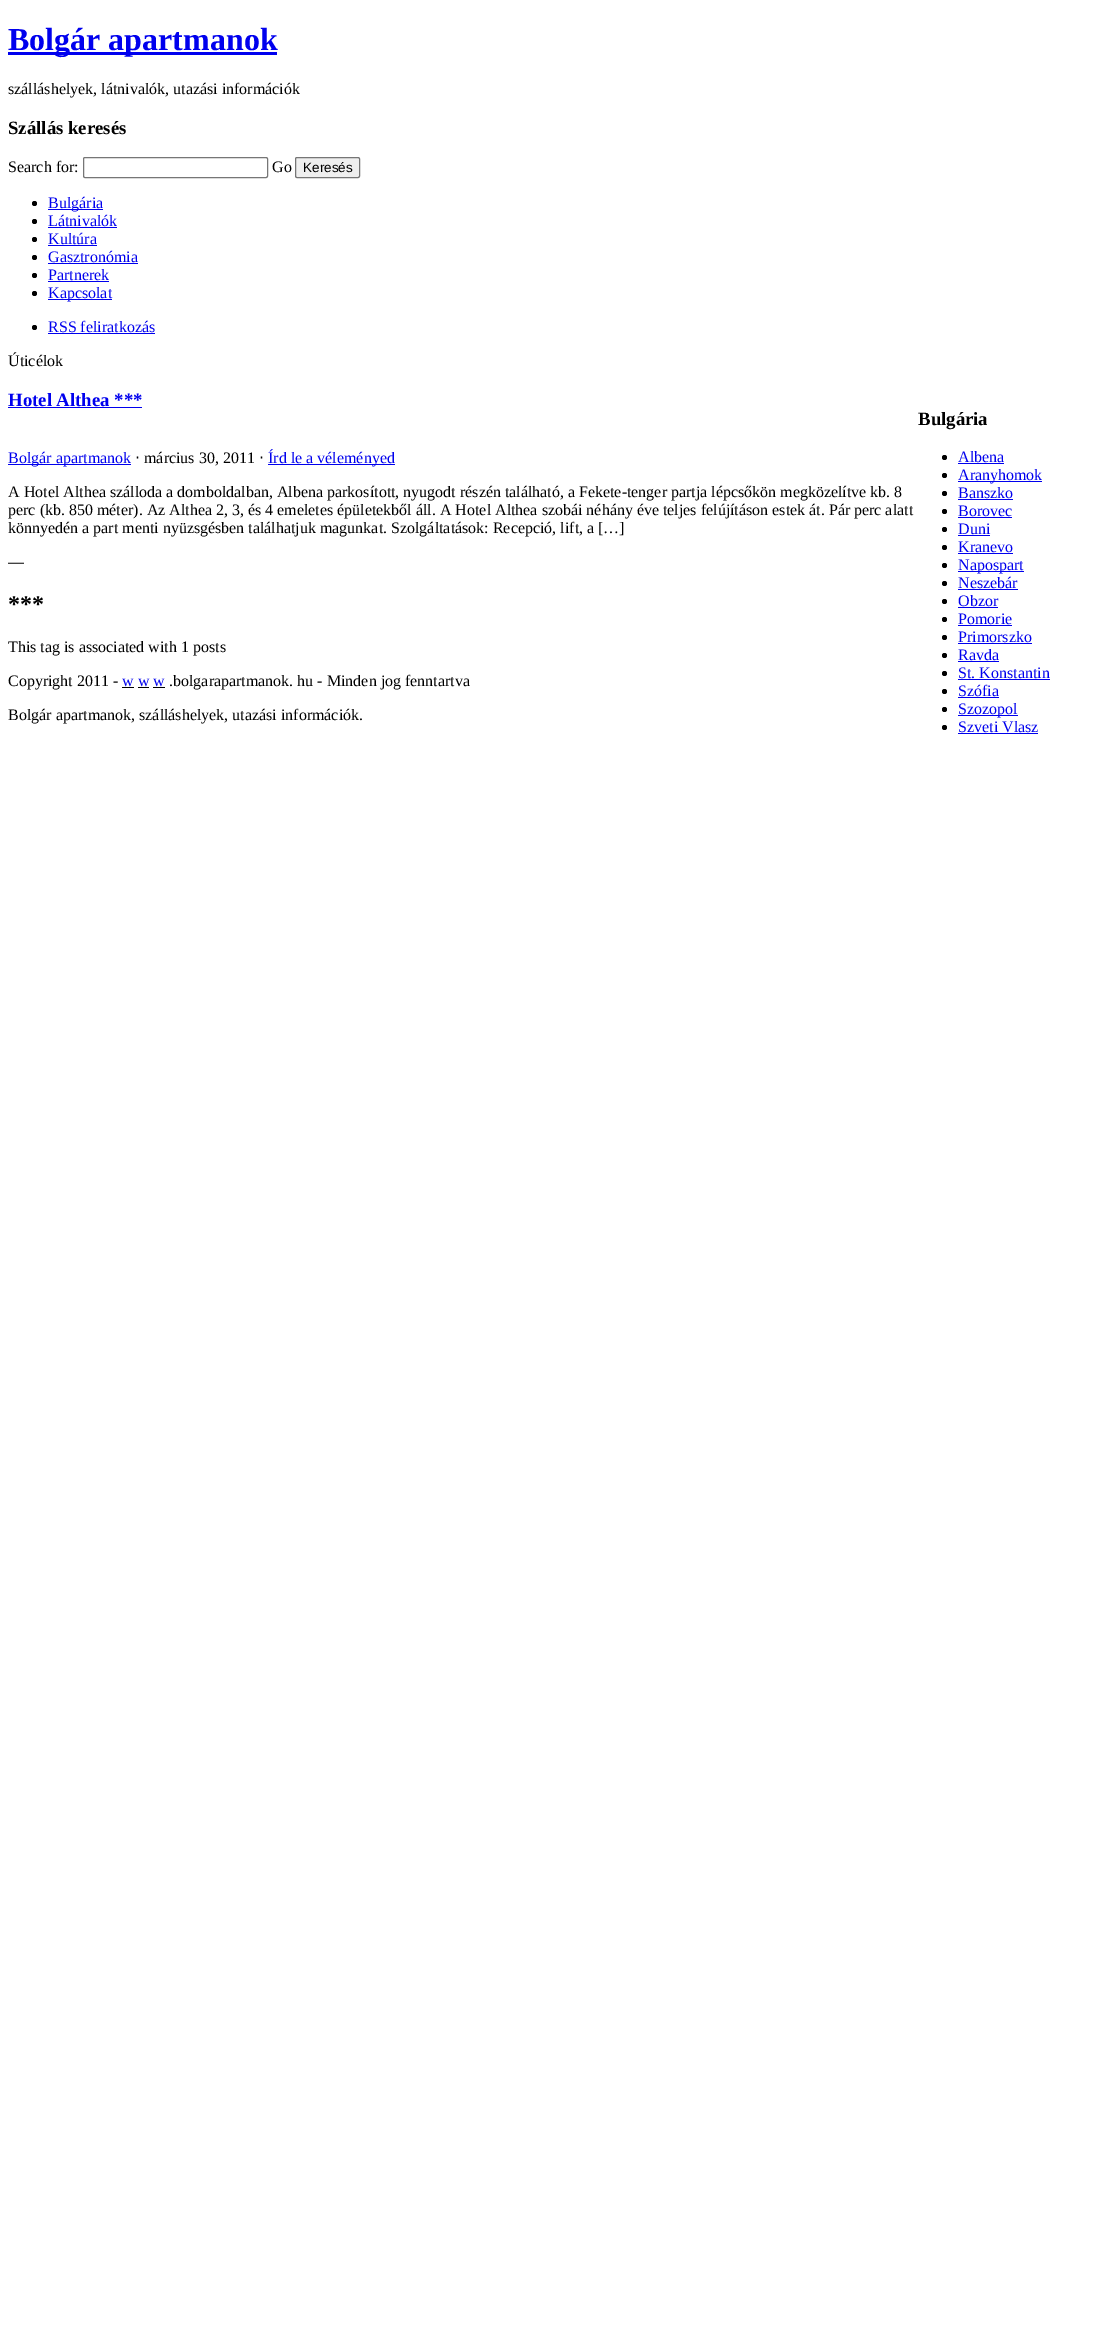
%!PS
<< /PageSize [1106 2329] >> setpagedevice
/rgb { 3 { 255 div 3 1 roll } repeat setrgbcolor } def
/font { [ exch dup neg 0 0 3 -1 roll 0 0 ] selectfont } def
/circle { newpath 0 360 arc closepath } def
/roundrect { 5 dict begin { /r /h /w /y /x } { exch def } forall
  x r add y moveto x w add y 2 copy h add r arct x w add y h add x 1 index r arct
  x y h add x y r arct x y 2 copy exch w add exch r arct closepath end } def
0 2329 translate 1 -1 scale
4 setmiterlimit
255 255 255 rgb
0 0 1106 2329 rectfill
0 0 238 rgb
8 52 269 3 rectfill
118 118 118 rgb
83.5 157.5 184 20 1.5 roundrect stroke
239 239 239 rgb
295.5 157.5 64 20 1.5 roundrect gsave fill grestore
118 118 118 rgb
stroke
0 0 0 rgb
34.5 203.5 2.5 circle fill
0 0 238 rgb
48 209 55 1 rectfill
0 0 0 rgb
34.5 221.5 2.5 circle fill
0 0 238 rgb
48 227 69 1 rectfill
0 0 0 rgb
34.5 239.5 2.5 circle fill
0 0 238 rgb
48 245 49 1 rectfill
0 0 0 rgb
34.5 257.5 2.5 circle fill
0 0 238 rgb
48 263 90 1 rectfill
0 0 0 rgb
34.5 275.5 2.5 circle fill
0 0 238 rgb
48 281 61 1 rectfill
0 0 0 rgb
34.5 293.5 2.5 circle fill
0 0 238 rgb
48 299 64 1 rectfill
0 0 0 rgb
34.5 327.5 2.5 circle fill
[
  [48 333 107 1 0 0 238]
  [8 407 134 1 0 0 238]
  [8 464 123 1 0 0 238]
  [268 464 127 1 0 0 238]
] { aload pop rgb rectfill } forall
0 0 0 rgb
944.5 457.5 2.5 circle fill
0 0 238 rgb
958 463 46 1 rectfill
0 0 0 rgb
944.5 475.5 2.5 circle fill
0 0 238 rgb
958 481 84 1 rectfill
0 0 0 rgb
944.5 493.5 2.5 circle fill
0 0 238 rgb
958 499 55 1 rectfill
0 0 0 rgb
944.5 511.5 2.5 circle fill
0 0 238 rgb
958 517 54 1 rectfill
0 0 0 rgb
944.5 529.5 2.5 circle fill
0 0 238 rgb
958 535 32 1 rectfill
0 0 0 rgb
944.5 547.5 2.5 circle fill
0 0 238 rgb
958 553 55 1 rectfill
0 0 0 rgb
944.5 565.5 2.5 circle fill
0 0 238 rgb
958 571 66 1 rectfill
0 0 0 rgb
944.5 583.5 2.5 circle fill
0 0 238 rgb
958 589 60 1 rectfill
0 0 0 rgb
944.5 601.5 2.5 circle fill
0 0 238 rgb
958 607 40 1 rectfill
0 0 0 rgb
944.5 619.5 2.5 circle fill
0 0 238 rgb
958 625 54 1 rectfill
0 0 0 rgb
944.5 637.5 2.5 circle fill
0 0 238 rgb
958 643 74 1 rectfill
0 0 0 rgb
944.5 655.5 2.5 circle fill
0 0 238 rgb
958 661 41 1 rectfill
0 0 0 rgb
944.5 673.5 2.5 circle fill
0 0 238 rgb
958 679 92 1 rectfill
0 0 0 rgb
944.5 691.5 2.5 circle fill
0 0 238 rgb
958 697 41 1 rectfill
0 0 0 rgb
944.5 709.5 2.5 circle fill
0 0 238 rgb
958 715 60 1 rectfill
0 0 0 rgb
944.5 727.5 2.5 circle fill
[
  [958 733 80 1 0 0 238]
  [122 687 12 1 0 0 0]
  [138 687 11 1 0 0 0]
  [153 687 12 1 0 0 0]
] { aload pop rgb rectfill } forall
/LiberationSerif-Bold 32 font
0 0 238 rgb
8 50 moveto (Bolgár apartmanok) show
/LiberationSerif-Regular 16 font
0 0 0 rgb
8 94 moveto (szálláshelyek, látnivalók, utazási információk) show
/LiberationSerif-Bold 18.75 font
8 134 moveto (Szállás keresés) show
/LiberationSerif-Regular 16 font
8 172 moveto (Search for:) show
272 172 moveto (Go) show
/LiberationSans-Regular 13.5 font
303 172 moveto (Keresés) show
/LiberationSerif-Regular 16 font
0 0 238 rgb
[
  [(Bulgária) 48 208]
  [(Látnivalók) 48 226]
  [(Kultúra) 48 244]
  [(Gasztronómia) 48 262]
  [(Partnerek) 48 280]
  [(Kapcsolat) 48 298]
  [(RSS feliratkozás) 48 332]
] { aload pop moveto show } forall
0 0 0 rgb
8 366 moveto (Úticélok) show
/LiberationSerif-Bold 18.75 font
0 0 238 rgb
8 406 moveto (Hotel Althea ***) show
/LiberationSerif-Regular 16 font
8 463 moveto (Bolgár apartmanok) show
/DejaVuSans-Regular 16 font
0 0 0 rgb
135 463 moveto (⋅) show
/LiberationSerif-Regular 16 font
144 463 moveto (március 30, 2011) show
/DejaVuSans-Regular 16 font
259 463 moveto (⋅) show
/LiberationSerif-Regular 16 font
0 0 238 rgb
268 463 moveto (Írd le a véleményed) show
0 0 0 rgb
[
  [(A Hotel Althea szálloda a domboldalban, Albena parkosított, nyugodt részén található, a Fekete-tenger partja lépcsőkön megközelítve kb. 8) 8 497]
  [(perc \(kb. 850 méter\). Az Althea 2, 3, és 4 emeletes épületekből áll. A Hotel Althea szobái néhány éve teljes felújításon estek át. Pár perc alatt) 8 515]
  [(könnyedén a part menti nyüzsgésben találhatjuk magunkat. Szolgáltatások: Recepció, lift, a […]) 8 533]
  [(—) 8 567]
] { aload pop moveto show } forall
/LiberationSerif-Bold 18.75 font
918 425 moveto (Bulgária) show
/LiberationSerif-Regular 16 font
0 0 238 rgb
[
  [(Albena) 958 462]
  [(Aranyhomok) 958 480]
  [(Banszko) 958 498]
  [(Borovec) 958 516]
  [(Duni) 958 534]
  [(Kranevo) 958 552]
  [(Napospart) 958 570]
  [(Neszebár) 958 588]
  [(Obzor) 958 606]
  [(Pomorie) 958 624]
  [(Primorszko) 958 642]
  [(Ravda) 958 660]
  [(St. Konstantin) 958 678]
  [(Szófia) 958 696]
  [(Szozopol) 958 714]
  [(Szveti Vlasz) 958 732]
] { aload pop moveto show } forall
/LiberationSerif-Bold 24 font
0 0 0 rgb
8 612 moveto (***) show
/LiberationSerif-Regular 16 font
8 652 moveto (This tag is associated with 1 posts) show
8 686 moveto (Copyright 2011 -) show
0 0 238 rgb
122 686 moveto (w w w) show
0 0 0 rgb
169 686 moveto (.bolgarapartmanok. hu - Minden jog fenntartva) show
8 720 moveto (Bolgár apartmanok, szálláshelyek, utazási információk.) show
showpage
